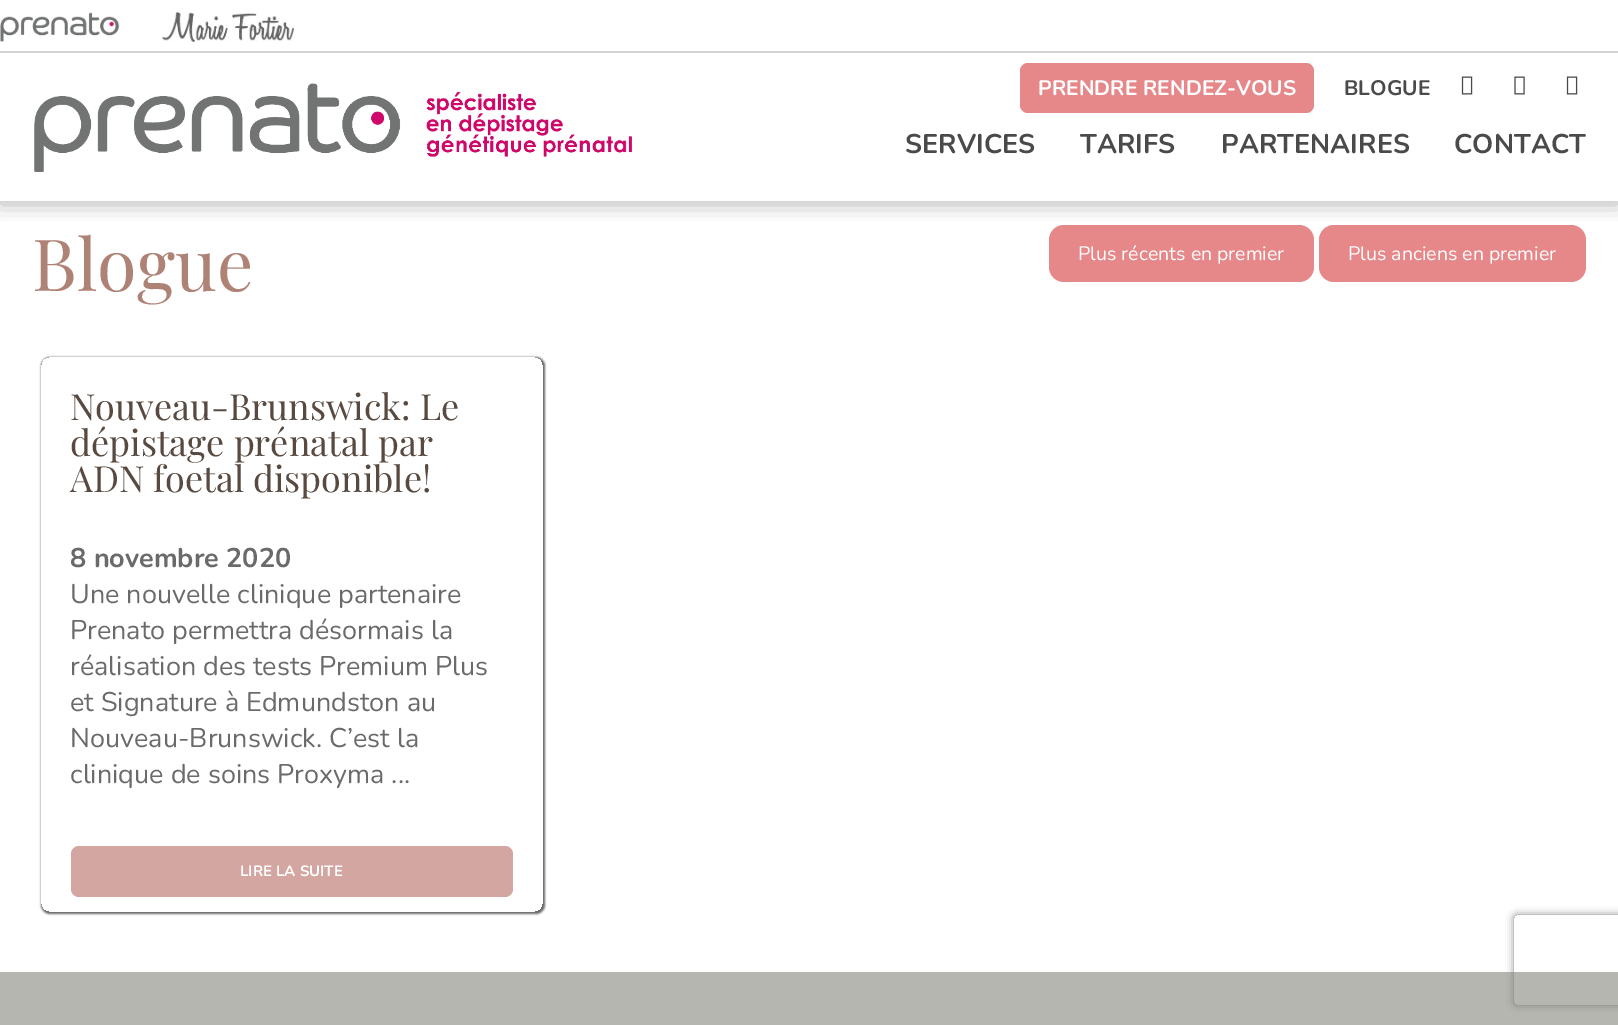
%!PS
<< /PageSize [1618 1025] /PageUsesTransparency true >> setpagedevice
/rgb { 3 { 255 div 3 1 roll } repeat setrgbcolor } def
/font { [ exch dup neg 0 0 3 -1 roll 0 0 ] selectfont } def
/alpha { dup .setfillconstantalpha .setstrokeconstantalpha } def
/roundrect { 5 dict begin { /r /h /w /y /x } { exch def } forall
  x r add y moveto x w add y 2 copy h add r arct x w add y h add x 1 index r arct
  x y h add x y r arct x y 2 copy exch w add exch r arct closepath end } def
/shadow { 12 dict begin { /a /b /q /h /w /y /x } { exch def } forall gsave /was 0 def
  9 -2 -9 { dup b mul 4 div /e exch def 1 sub .425 mul 2.718 exch exp 1 add a .99 .min exch div /now exch def
    1 1 now sub 1 was sub div sub alpha /was now def
    w h .min e 2 mul add 0 gt { x e sub y e sub w e 2 mul add h e 2 mul add
      q e add b .6 mul add w h .min 2 div e add .min 0 .max roundrect fill } if } for grestore end } def
/picture { 5 dict begin { /h /w /y /x /name } { exch def } forall
  gsave x y translate w h scale
  w h 8 [w 0 0 h 0 0] name (r) file false 3 colorimage grestore end } def
0 .pushpdf14devicefilter
0 1025 translate 1 -1 scale
4 setmiterlimit
255 255 255 rgb
0 0 1618 1025 rectfill
230 135 137 rgb
1049 225 265 57 15 roundrect fill
1319 225 267 57 15 roundrect fill
gsave
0 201 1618 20 rectclip
0 0 0 rgb
0 54 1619 150 0 11 0.3 shadow
grestore
255 255 255 rgb
0 34 1618 17 rectfill
211 211 211 rgb
0 51 1618 2 rectfill
(img/1.rgb) 0 12 120 30 picture
(img/2.rgb) 162 12 132 30 picture
230 135 137 rgb
1020 63 294 50 8 roundrect fill
(img/3.rgb) 1461 76 12 19 picture
(img/4.rgb) 1514 76 11 19 picture
(img/3.rgb) 1566 76 12 19 picture
(img/5.rgb) 34 83 598 89 picture
gsave
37 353 moveto 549 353 lineto 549 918 lineto 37 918 lineto closepath 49 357 moveto 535 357 lineto 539.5 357 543 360.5 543 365 curveto 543 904 lineto 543 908.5 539.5 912 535 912 curveto 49 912 lineto 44.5 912 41 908.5 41 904 curveto 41 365 lineto 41 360.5 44.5 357 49 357 curveto closepath eoclip newpath
102 102 102 rgb
41 357 504 557 9 1 1 shadow
grestore
211 166 161 rgb
71 846 442 51 8 roundrect fill
181 182 176 rgb
0 972 1618 53 rectfill
gsave
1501 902 moveto 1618 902 lineto 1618 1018 lineto 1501 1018 lineto closepath 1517 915 moveto 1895 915 lineto 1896.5 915 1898 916.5 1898 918 curveto 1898 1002 lineto 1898 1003.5 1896.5 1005 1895 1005 curveto 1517 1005 lineto 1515.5 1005 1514 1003.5 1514 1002 curveto 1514 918 lineto 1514 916.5 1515.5 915 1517 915 curveto closepath eoclip newpath
128 128 128 rgb
1514 915 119 90 3 4 1 shadow
grestore
/Nunito-Bold 21 font
255 255 255 rgb
1038 95 moveto (PRENDRE RENDEZ-VOUS) show
74 74 74 rgb
1344 95 moveto (BLOGUE) show
/Nunito-Bold 27 font
[
  [(SERVICES) 905 153]
  [(TARIFS) 1080 153]
  [(PARTENAIRES) 1221 153]
  [(CONTACT) 1454 153]
] { aload pop moveto show } forall
/PlayfairDisplay-Regular 72 font
174 131 118 rgb
32 291 moveto (Blogue) show
/Nunito-Regular 19.5 font
255 255 255 rgb
1078 260 moveto (Plus récents en premier) show
1348 260 moveto (Plus anciens en premier) show
/PlayfairDisplay-Regular 36 font
88 74 64 rgb
[
  [(Nouveau-Brunswick: Le) 70 420]
  [(dépistage prénatal par) 70 456]
  [(ADN foetal disponible!) 70 492]
] { aload pop moveto show } forall
/Nunito-Bold 27 font
106 106 106 rgb
70 567 moveto (8 novembre 2020) show
/Nunito-Regular 27 font
[
  [(Une nouvelle clinique partenaire) 70 603]
  [(Prenato permettra désormais la) 70 639]
  [(réalisation des tests Premium Plus) 70 675]
  [(et Signature à Edmundston au) 70 711]
  [(Nouveau-Brunswick. C’est la) 70 747]
  [(clinique de soins Proxyma ...) 70 783]
] { aload pop moveto show } forall
/Nunito-Bold 15 font
255 255 255 rgb
240 876 moveto (LIRE LA SUITE) show
.poppdf14devicefilter showpage
